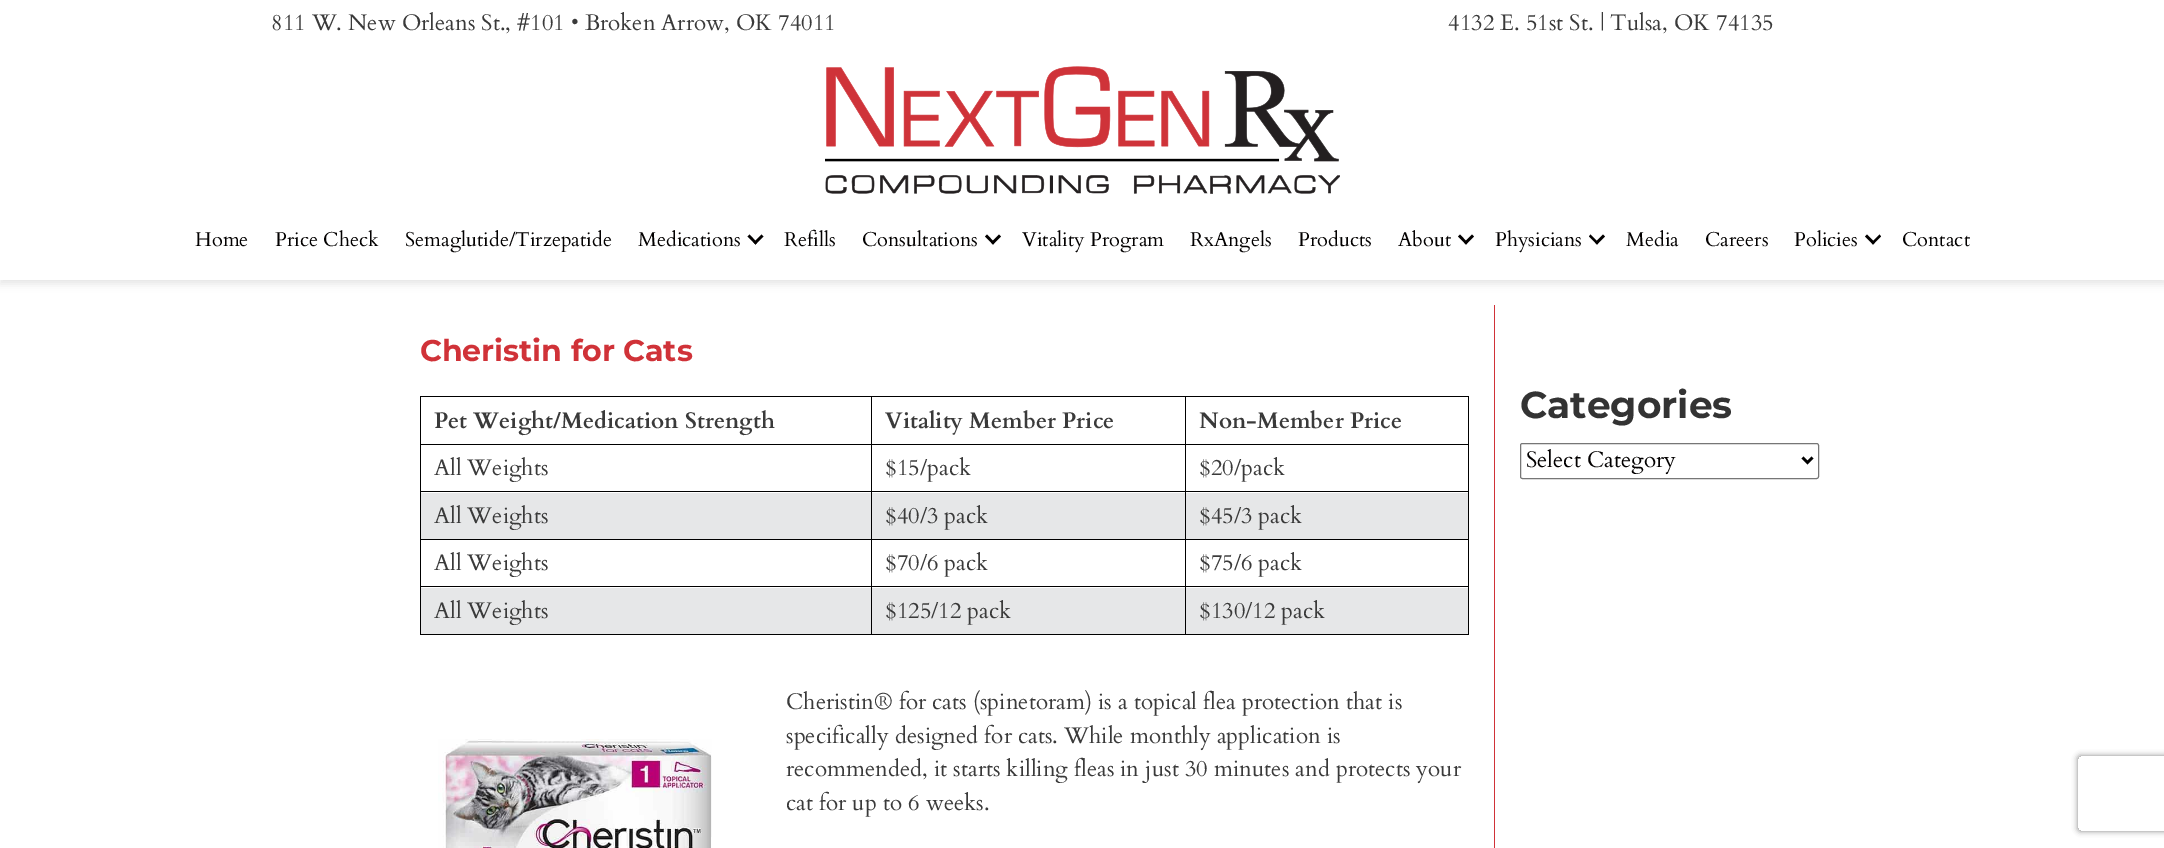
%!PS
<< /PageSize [2164 848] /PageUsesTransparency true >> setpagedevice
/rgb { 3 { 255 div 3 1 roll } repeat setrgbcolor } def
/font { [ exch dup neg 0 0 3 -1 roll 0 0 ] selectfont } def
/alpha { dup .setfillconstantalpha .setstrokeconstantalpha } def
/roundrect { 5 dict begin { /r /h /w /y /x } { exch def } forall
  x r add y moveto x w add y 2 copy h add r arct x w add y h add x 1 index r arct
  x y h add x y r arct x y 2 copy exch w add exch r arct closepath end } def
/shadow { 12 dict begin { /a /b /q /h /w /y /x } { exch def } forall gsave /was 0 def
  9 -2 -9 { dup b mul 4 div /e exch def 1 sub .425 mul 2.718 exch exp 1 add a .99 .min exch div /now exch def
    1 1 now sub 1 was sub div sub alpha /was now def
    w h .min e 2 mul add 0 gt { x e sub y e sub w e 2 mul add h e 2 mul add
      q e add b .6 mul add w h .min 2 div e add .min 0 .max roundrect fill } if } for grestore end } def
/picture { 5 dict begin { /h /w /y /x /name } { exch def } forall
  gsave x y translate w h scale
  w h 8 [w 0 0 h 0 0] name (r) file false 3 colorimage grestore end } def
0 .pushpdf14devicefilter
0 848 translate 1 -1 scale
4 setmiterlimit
255 255 255 rgb
0 0 2164 848 rectfill
2 0 0 rgb
0 4 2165 280 0 4 0.1 shadow
255 255 255 rgb
0 0 2164 280 rectfill
(img/1.rgb) 825 66 515 128 picture
2 0 0 rgb
761.5 234.5 moveto 763.5 236.5 lineto 755.5 244.5 lineto 753.5 242.5 lineto closepath fill
749.5 234.5 moveto 757 242.5 lineto 755.5 244.5 lineto 747.5 236.5 lineto closepath fill
999 234.5 moveto 1001 236.5 lineto 993 244.5 lineto 991 242.5 lineto closepath fill
987 234.5 moveto 994.5 242.5 lineto 993 244.5 lineto 985 236.5 lineto closepath fill
1472 234.5 moveto 1474 236.5 lineto 1466 244.5 lineto 1464 242.5 lineto closepath fill
1460 234.5 moveto 1467.5 242.5 lineto 1466 244.5 lineto 1458 236.5 lineto closepath fill
1603 234.5 moveto 1605 236.5 lineto 1597 244.5 lineto 1595 242.5 lineto closepath fill
1590.5 234.5 moveto 1598.5 242.5 lineto 1597 244.5 lineto 1589 236.5 lineto closepath fill
1879.5 234.5 moveto 1881 236.5 lineto 1873 244.5 lineto 1871.5 242.5 lineto closepath fill
1867 234.5 moveto 1875 242.5 lineto 1873 244.5 lineto 1865 236.5 lineto closepath fill
[
  [1494 305 1 543 208 50 56]
  [1185 396 284 1 0 0 0]
  [1185 444 284 1 0 0 0]
  [1185 491 284 1 0 0 0]
  [421 493 1047 46 230 231 232]
  [1185 539 284 1 0 0 0]
  [1185 586 284 1 0 0 0]
  [421 588 1047 46 230 231 232]
  [1468 586 1 49 0 0 0]
  [1185 634 284 1 0 0 0]
  [1185 586 1 49 0 0 0]
  [871 586 315 1 0 0 0]
  [1185 539 1 49 0 0 0]
  [871 539 315 1 0 0 0]
  [1185 491 1 49 0 0 0]
  [871 491 315 1 0 0 0]
  [1185 444 1 49 0 0 0]
  [871 444 315 1 0 0 0]
  [1185 396 1 49 0 0 0]
  [871 396 315 1 0 0 0]
  [871 634 315 1 0 0 0]
  [871 586 1 49 0 0 0]
  [420 586 453 1 0 0 0]
  [871 539 1 49 0 0 0]
  [420 539 453 1 0 0 0]
  [871 491 1 49 0 0 0]
  [420 491 453 1 0 0 0]
  [871 444 1 49 0 0 0]
  [420 444 453 1 0 0 0]
  [871 396 1 49 0 0 0]
  [420 396 453 1 0 0 0]
  [420 634 453 1 0 0 0]
  [420 586 1 49 0 0 0]
  [420 539 1 49 0 0 0]
  [420 491 1 49 0 0 0]
  [420 444 1 49 0 0 0]
  [420 396 1 49 0 0 0]
  [1468 539 1 49 0 0 0]
  [1468 491 1 49 0 0 0]
  [1468 444 1 49 0 0 0]
  [1468 396 1 49 0 0 0]
] { aload pop rgb rectfill } forall
(img/2.rgb) 438 739 274 109 picture
118 118 118 rgb
1520.5 443.5 298 35 2 roundrect stroke
0 0 0 rgb
2.5 setlinewidth
1802.5 457.5 moveto 1807.5 462.5 lineto 1812.5 457.5 lineto stroke
gsave
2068 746 moveto 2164 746 lineto 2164 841 lineto 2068 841 lineto closepath 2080.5 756 moveto 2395.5 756 lineto 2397 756 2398 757 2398 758.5 curveto 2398 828.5 lineto 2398 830 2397 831 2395.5 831 curveto 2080.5 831 lineto 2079 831 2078 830 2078 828.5 curveto 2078 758.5 lineto 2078 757 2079 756 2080.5 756 curveto closepath eoclip newpath
128 128 128 rgb
2078 756 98 75 2.5 3 1 shadow
grestore
/Cardo-Regular 22.5 font
58 58 58 rgb
271 30 moveto (811 W. New Orleans St., #101 • Broken Arrow, OK 74011) show
1448 30 moveto (4132 E. 51st St. | Tulsa, OK 74135) show
/Cardo-Regular 20 font
2 0 0 rgb
[
  [(Home) 195 246]
  [(Price Check) 275 246]
  [(Semaglutide/Tirzepatide) 405 246]
  [(Medications) 638 246]
  [(Refills) 784 246]
  [(Consultations) 862 246]
  [(Vitality Program) 1022 246]
  [(RxAngels) 1190 246]
  [(Products) 1298 246]
  [(About) 1398 246]
  [(Physicians) 1495 246]
  [(Media) 1626 246]
  [(Careers) 1705 246]
  [(Policies) 1794 246]
  [(Contact) 1902 246]
] { aload pop moveto show } forall
/Montserrat-Thin 30 font
208 50 56 rgb
420 361 moveto (Cheristin for Cats) show
/Cardo-Bold 22.5 font
58 58 58 rgb
[
  [(Pet Weight/Medication Strength) 434 428]
  [(Vitality Member Price) 885 428]
  [(Non-Member Price) 1199 428]
] { aload pop moveto show } forall
/Cardo-Regular 22.5 font
[
  [(All Weights) 434 475]
  [($15/pack) 885 475]
  [($20/pack) 1199 475]
  [(All Weights) 434 523]
  [($40/3 pack) 885 523]
  [($45/3 pack) 1199 523]
  [(All Weights) 434 570]
  [($70/6 pack) 885 570]
  [($75/6 pack) 1199 570]
  [(All Weights) 434 618]
  [($125/12 pack) 885 618]
  [($130/12 pack) 1199 618]
  [(Cheristin® for cats \(spinetoram\) is a topical flea protection that is) 786 709]
  [(specifically designed for cats. While monthly application is) 786 743]
  [(recommended, it starts killing fleas in just 30 minutes and protects your) 786 776]
  [(cat for up to 6 weeks.) 786 810]
] { aload pop moveto show } forall
/Montserrat-Thin 37.5 font
51 51 51 rgb
1520 418 moveto (Categories) show
/Cardo-Regular 22.5 font
2 0 0 rgb
1526 467 moveto (Select Category) show
.poppdf14devicefilter showpage
